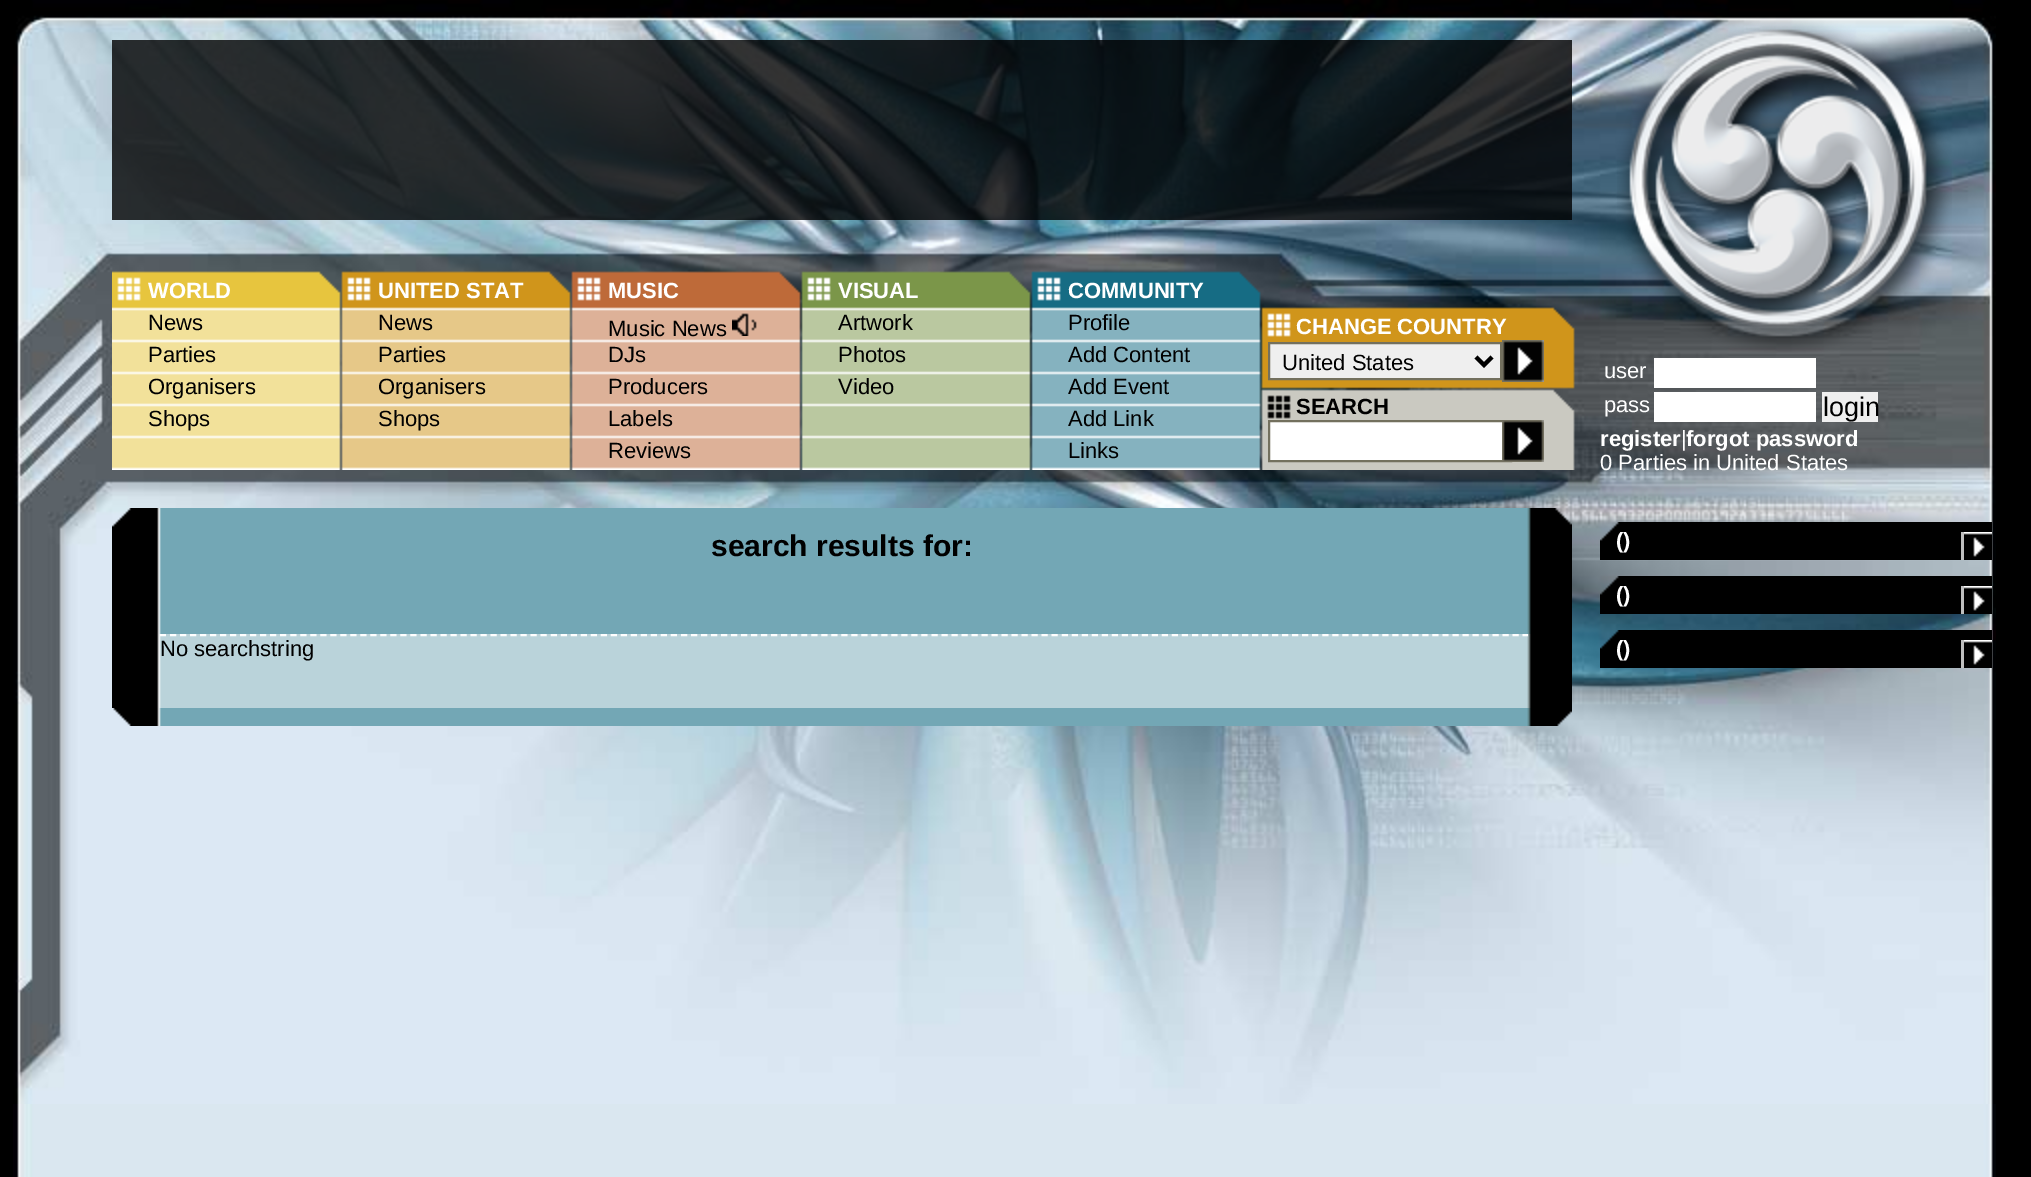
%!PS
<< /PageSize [2031 1177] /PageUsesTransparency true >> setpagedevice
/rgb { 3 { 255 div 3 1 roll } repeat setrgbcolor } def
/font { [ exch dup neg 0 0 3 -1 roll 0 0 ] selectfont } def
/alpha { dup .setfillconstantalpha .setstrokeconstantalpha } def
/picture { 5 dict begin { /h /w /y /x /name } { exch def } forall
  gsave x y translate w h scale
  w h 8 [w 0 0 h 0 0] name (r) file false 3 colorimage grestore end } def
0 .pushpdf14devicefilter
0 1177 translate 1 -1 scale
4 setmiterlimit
0 0 0 rgb
0 0 2031 1177 rectfill
(img/1.rgb) 13 1104 1983 73 picture
(img/2.rgb) 13 0 1983 1104 picture
0.8 alpha
112 40 1460 180 rectfill
1 alpha
(img/3.rgb) 1617 18 335 335 picture
(img/4.rgb) 112 271 1463 199 picture
(img/5.rgb) 732 313 25 23 picture
239 239 239 rgb
1269 343 moveto 1501 343 lineto 1501 379 lineto 1269 379 lineto closepath gsave fill grestore
115 112 94 rgb
2 setlinewidth
stroke
0 0 0 rgb
4 setlinewidth
1476 357 moveto 1484 365 lineto 1492 357 lineto stroke
(img/6.rgb) 1502 340 42 42 picture
255 255 255 rgb
1270 422 232 38 rectfill
115 112 94 rgb
2 setlinewidth
1269 421 242 40 rectstroke
(img/6.rgb) 1502 420 42 42 picture
[
  [1654 358 162 30 255 255 255]
  [1654 392 162 30 255 255 255]
  [1822 392 56 30 239 239 239]
] { aload pop rgb rectfill } forall
(img/7.rgb) 112 508 1460 20 picture
(img/8.rgb) 112 528 1460 106 picture
(img/9.rgb) 112 634 1460 74 picture
255 255 255 rgb
[6 4.02] 0 setdash
160 635 moveto 1528 635 lineto stroke
(img/10.rgb) 113 708 1459 18 picture
(img/11.rgb) 1600 522 392 38 picture
191 191 191 rgb
1961 532 3 28 rectfill
(img/12.rgb) 1964 532 28 25 picture
(img/13.rgb) 1600 576 392 38 picture
1961 586 3 28 rectfill
(img/12.rgb) 1964 586 28 25 picture
(img/14.rgb) 1600 630 392 38 picture
1961 640 3 28 rectfill
(img/12.rgb) 1964 640 28 25 picture
/LiberationSans-Bold 22 font
255 255 255 rgb
148 298 moveto (WORLD) show
/LiberationSans-Regular 22 font
0 0 0 rgb
[
  [(News) 148 330]
  [(Parties) 148 362]
  [(Organisers) 148 394]
  [(Shops) 148 426]
] { aload pop moveto show } forall
/LiberationSans-Bold 22 font
255 255 255 rgb
378 298 moveto (UNITED STAT) show
/LiberationSans-Regular 22 font
0 0 0 rgb
[
  [(News) 378 330]
  [(Parties) 378 362]
  [(Organisers) 378 394]
  [(Shops) 378 426]
] { aload pop moveto show } forall
/LiberationSans-Bold 22 font
255 255 255 rgb
608 298 moveto (MUSIC) show
/LiberationSans-Regular 22 font
0 0 0 rgb
[
  [(Music News) 608 336]
  [(DJs) 608 362]
  [(Producers) 608 394]
  [(Labels) 608 426]
  [(Reviews) 608 458]
] { aload pop moveto show } forall
/LiberationSans-Bold 22 font
255 255 255 rgb
838 298 moveto (VISUAL) show
/LiberationSans-Regular 22 font
0 0 0 rgb
[
  [(Artwork) 838 330]
  [(Photos) 838 362]
  [(Video) 838 394]
] { aload pop moveto show } forall
/LiberationSans-Bold 22 font
255 255 255 rgb
1068 298 moveto (COMMUNITY) show
/LiberationSans-Regular 22 font
0 0 0 rgb
[
  [(Profile) 1068 330]
  [(Add Content) 1068 362]
  [(Add Event) 1068 394]
  [(Add Link) 1068 426]
  [(Links) 1068 458]
] { aload pop moveto show } forall
/LiberationSans-Bold 22 font
255 255 255 rgb
1296 334 moveto (CHANGE COUNTRY) show
/LiberationSans-Regular 22 font
0 0 0 rgb
1282 370 moveto (United States) show
/LiberationSans-Bold 22 font
1296 414 moveto (SEARCH) show
/LiberationSans-Regular 22 font
255 255 255 rgb
1604 378 moveto (user) show
1604 412 moveto (pass) show
/LiberationSans-Regular 27 font
0 0 0 rgb
1823 416 moveto (login) show
/LiberationSans-Bold 22 font
255 255 255 rgb
1600 446 moveto (register) show
/LiberationSans-Regular 22 font
1681 446 moveto (|) show
/LiberationSans-Bold 22 font
1686 446 moveto (forgot password) show
/LiberationSans-Regular 22 font
1600 470 moveto (0 Parties in United States) show
/LiberationSans-Bold 30 font
0 0 0 rgb
711 556 moveto (search results for:) show
/LiberationSans-Regular 22 font
160 656 moveto (No searchstring) show
/LiberationSans-Bold 22 font
255 255 255 rgb
[
  [(\(\)) 1616 548]
  [(\(\)) 1616 602]
  [(\(\)) 1616 656]
] { aload pop moveto show } forall
.poppdf14devicefilter showpage
